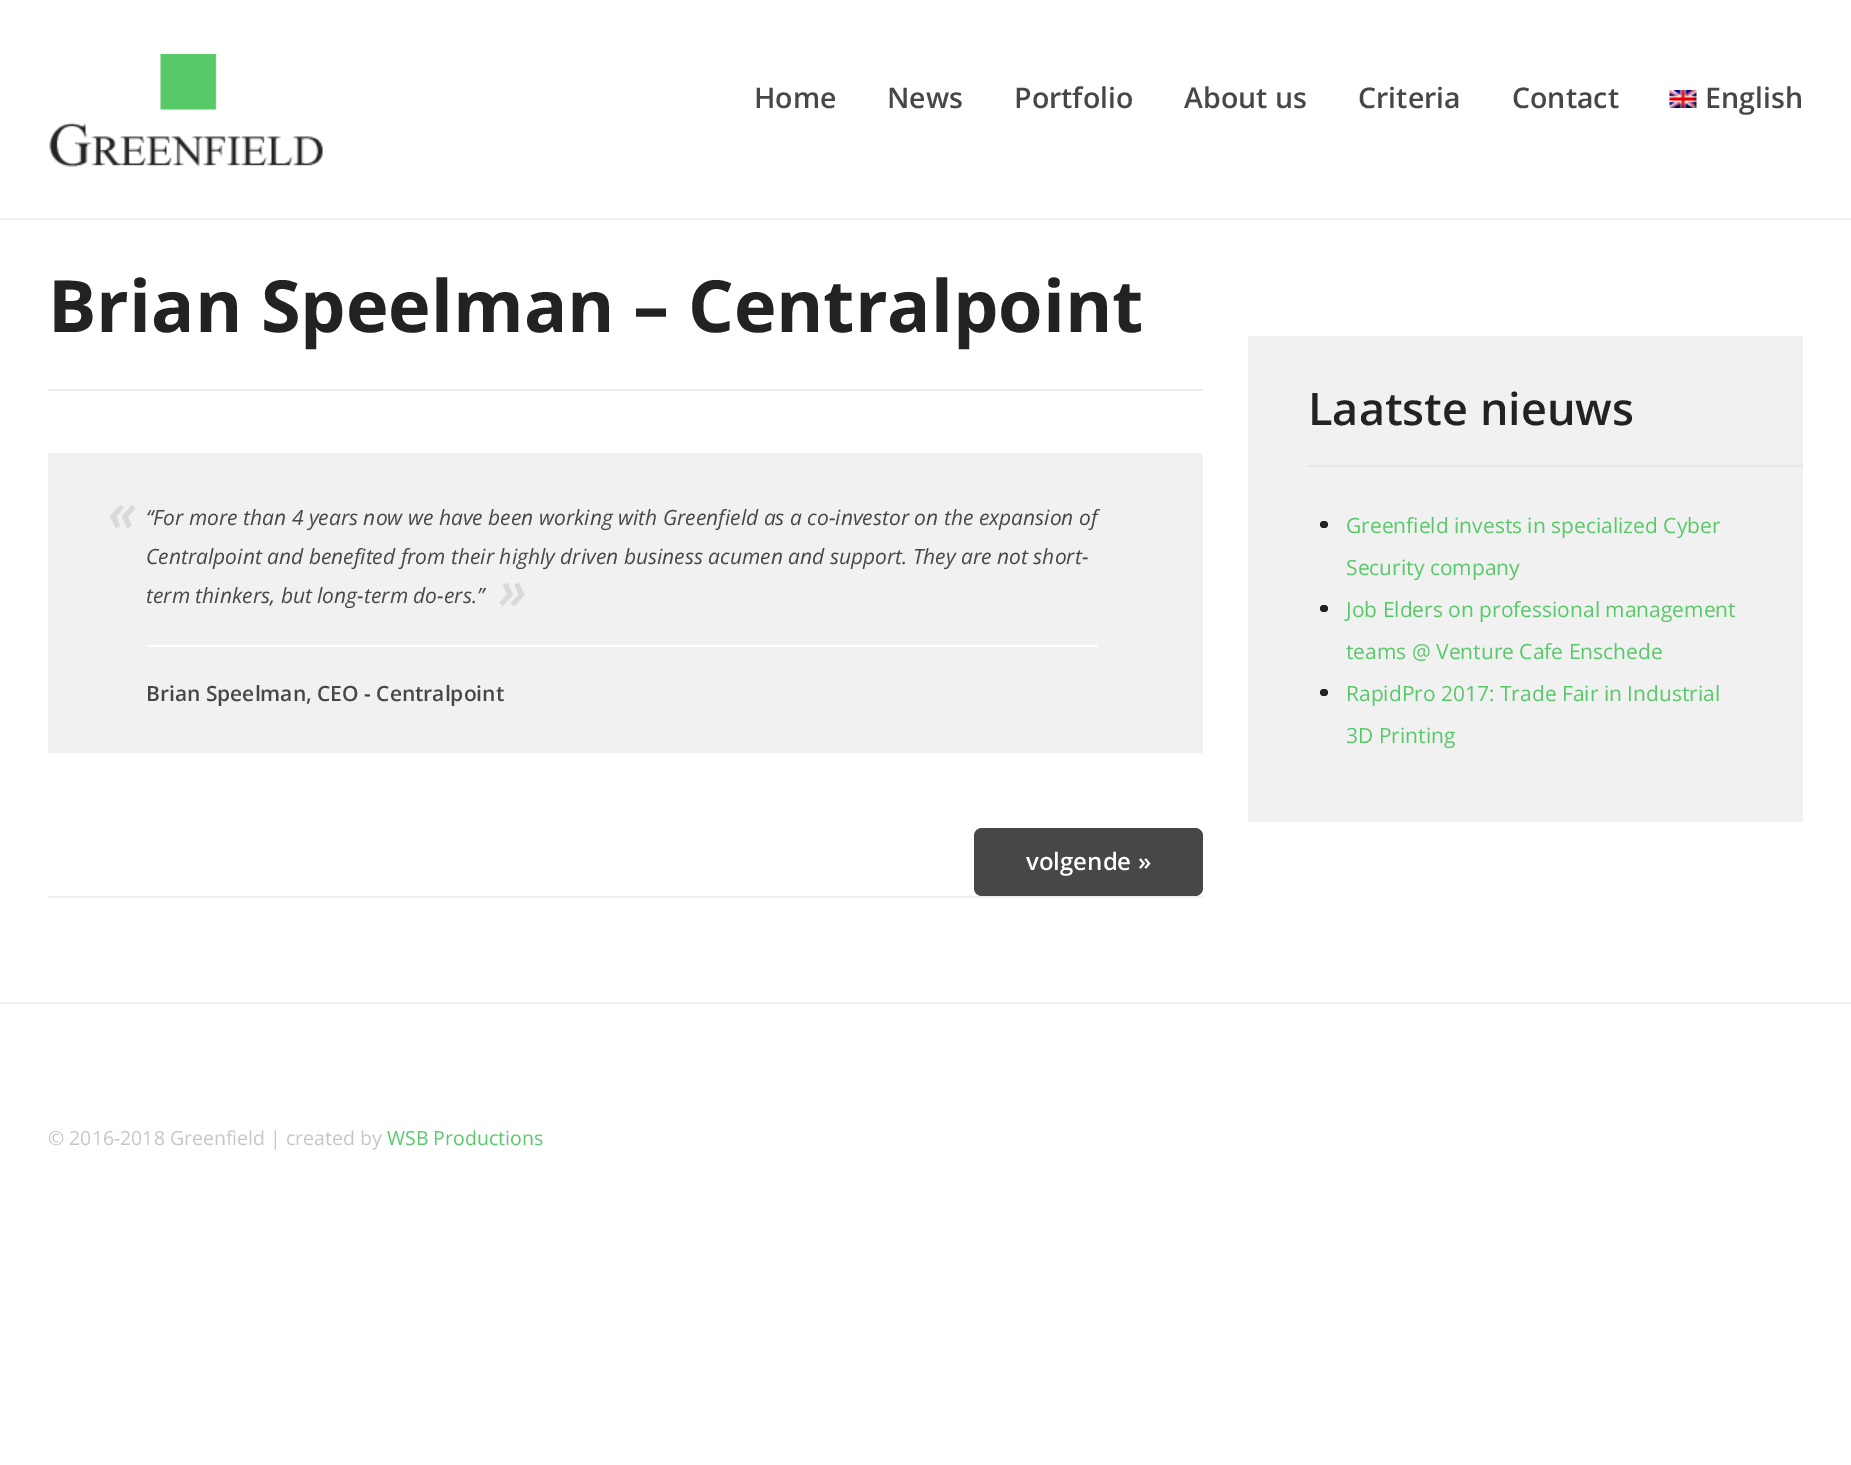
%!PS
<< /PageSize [1851 1465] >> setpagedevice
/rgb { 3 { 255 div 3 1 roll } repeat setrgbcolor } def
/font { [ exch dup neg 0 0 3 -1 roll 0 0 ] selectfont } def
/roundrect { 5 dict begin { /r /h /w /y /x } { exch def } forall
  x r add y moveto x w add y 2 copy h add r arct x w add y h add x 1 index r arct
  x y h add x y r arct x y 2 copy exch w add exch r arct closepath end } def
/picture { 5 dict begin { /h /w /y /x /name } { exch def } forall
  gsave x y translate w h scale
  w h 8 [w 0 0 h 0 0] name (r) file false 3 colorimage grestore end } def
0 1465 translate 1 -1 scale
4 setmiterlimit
255 255 255 rgb
0 0 1851 1465 rectfill
240 240 240 rgb
0 218 1851 2 rectfill
(img/1.rgb) 49 54 274 113 picture
(img/2.rgb) 1669 90 28 18 picture
[
  [48 389 1155 2 238 238 238]
  [48 453 1155 300 241 241 241]
  [146 645 952 2 255 255 255]
  [48 896 1155 2 240 240 240]
] { aload pop rgb rectfill } forall
71 71 71 rgb
974 828 229 68 8 roundrect fill
241 241 241 rgb
1248 336 555 486 rectfill
230 230 230 rgb
1308 465 495 2 rectfill
34 34 34 rgb
1320 521 8 7 3.5 roundrect fill
1320 605 8 7 3.5 roundrect fill
1320 689 8 7 3.5 roundrect fill
240 240 240 rgb
0 1002 1851 2 rectfill
/OpenSans-SemiBold 28.5 font
71 71 71 rgb
[
  [(Home) 754 108]
  [(News) 887 108]
  [(Portfolio) 1014 108]
  [(About us) 1184 108]
  [(Criteria) 1358 108]
  [(Contact) 1512 108]
  [(English) 1705 108]
] { aload pop moveto show } forall
/OpenSans-Bold 72 font
34 34 34 rgb
48 332 moveto (Brian Speelman – Centralpoint) show
/OpenSans-SemiBoldItalic 54 font
217 217 217 rgb
108 531 moveto («) show
/OpenSans-Italic 21 font
71 71 71 rgb
[
  [(“For more than 4 years now we have been working with Greenfield as a co-investor on the expansion of) 146 525]
  [(Centralpoint and benefited from their highly driven business acumen and support. They are not short-) 146 564]
  [(term thinkers, but long-term do-ers.”) 146 603]
] { aload pop moveto show } forall
/OpenSans-SemiBoldItalic 54 font
217 217 217 rgb
499 609 moveto (») show
/OpenSans-SemiBold 21 font
71 71 71 rgb
146 701 moveto (Brian Speelman, CEO - Centralpoint) show
/OpenSans-SemiBold 24 font
255 255 255 rgb
1026 870 moveto (volgende ») show
/OpenSans-SemiBold 45 font
34 34 34 rgb
1308 425 moveto (Laatste nieuws) show
/OpenSans-Regular 21 font
87 201 105 rgb
[
  [(Greenfield invests in specialized Cyber) 1346 533]
  [(Security company) 1346 575]
  [(Job Elders on professional management) 1346 617]
  [(teams @ Venture Cafe Enschede) 1346 659]
  [(RapidPro 2017: Trade Fair in Industrial) 1346 701]
  [(3D Printing) 1346 743]
] { aload pop moveto show } forall
/OpenSans-Regular 19.5 font
198 198 198 rgb
48 1145 moveto (© 2016-2018 Greenfield | created by) show
87 201 105 rgb
387 1145 moveto (WSB Productions) show
showpage
